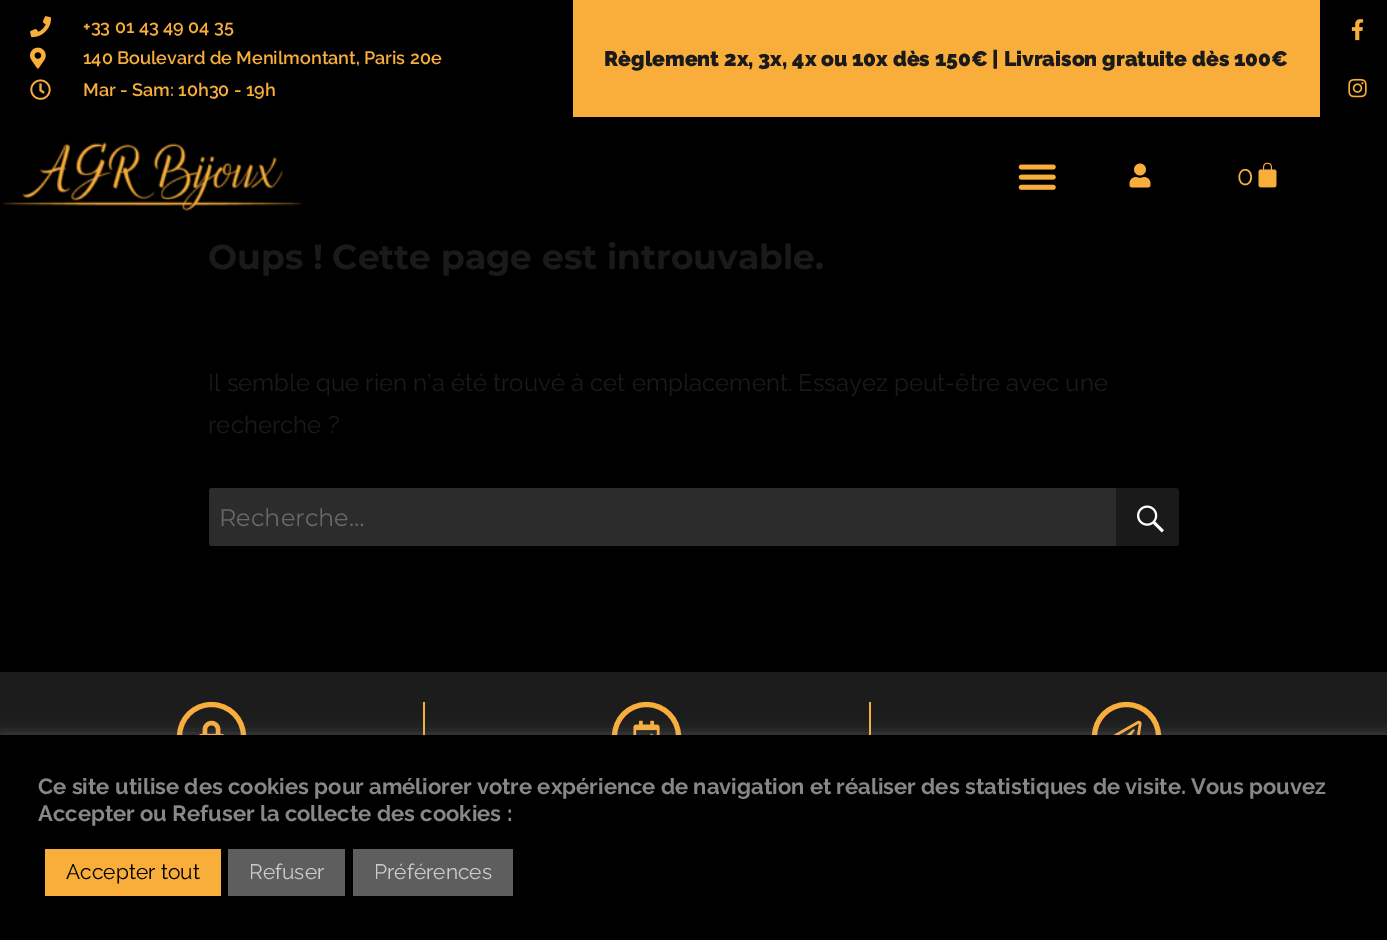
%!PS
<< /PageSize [1387 940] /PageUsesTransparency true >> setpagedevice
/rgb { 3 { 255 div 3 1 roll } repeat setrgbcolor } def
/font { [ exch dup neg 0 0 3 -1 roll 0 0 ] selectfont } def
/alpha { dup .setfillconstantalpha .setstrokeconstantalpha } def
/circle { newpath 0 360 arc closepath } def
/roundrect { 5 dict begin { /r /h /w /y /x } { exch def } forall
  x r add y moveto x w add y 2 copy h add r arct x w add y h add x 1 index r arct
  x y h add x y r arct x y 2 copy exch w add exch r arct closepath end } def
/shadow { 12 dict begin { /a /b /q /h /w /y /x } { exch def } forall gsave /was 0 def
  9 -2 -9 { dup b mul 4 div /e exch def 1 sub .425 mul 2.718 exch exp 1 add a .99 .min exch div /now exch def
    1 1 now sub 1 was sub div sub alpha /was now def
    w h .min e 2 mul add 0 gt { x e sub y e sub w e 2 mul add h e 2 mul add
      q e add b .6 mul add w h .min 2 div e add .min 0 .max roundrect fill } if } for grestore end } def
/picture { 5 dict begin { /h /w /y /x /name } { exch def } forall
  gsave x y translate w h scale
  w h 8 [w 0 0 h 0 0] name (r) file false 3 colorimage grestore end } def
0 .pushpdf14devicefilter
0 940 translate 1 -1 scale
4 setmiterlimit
0 0 0 rgb
0 0 1387 940 rectfill
(img/1.rgb) 30 16 21 22 picture
(img/2.rgb) 30 47 16 22 picture
(img/3.rgb) 30 79 21 21 picture
249 174 59 rgb
573 0 747 117 rectfill
(img/4.rgb) 1351 19 13 22 picture
(img/5.rgb) 1348 78 19 20 picture
(img/6.rgb) 2 142 300 69 picture
(img/7.rgb) 1018 164 38 26 picture
(img/8.rgb) 1129 163 22 25 picture
(img/9.rgb) 1258 162 19 26 picture
44 44 44 rgb
212 488 moveto 1116 488 lineto 1116 546 lineto 212 546 lineto 210.5 546 209 544.5 209 543 curveto 209 491 lineto 209 489.5 210.5 488 212 488 curveto closepath fill
26 26 26 rgb
1116 488 moveto 1176 488 lineto 1177.5 488 1179 489.5 1179 491 curveto 1179 543 lineto 1179 544.5 1177.5 546 1176 546 curveto 1116 546 lineto closepath fill
(img/10.rgb) 1137 505 27 28 picture
28 28 28 rgb
0 672 1387 63 rectfill
249 174 59 rgb
5 setlinewidth
211.5 736.5 32 circle stroke
(img/11.rgb) 199 720 25 15 picture
869 702 2 33 rectfill
423 702 2 33 rectfill
646.5 736.5 32 circle stroke
(img/12.rgb) 633 720 27 15 picture
1126.5 736.5 32 circle stroke
(img/13.rgb) 1113 720 29 15 picture
172 171 171 rgb
0 734 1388 205 0 7.5 0.3 shadow
[
  [0 735 1387 205 0 0 0]
  [45 849 176 47 249 174 59]
  [228 849 117 47 94 94 94]
  [353 849 160 47 94 94 94]
] { aload pop rgb rectfill } forall
/Raleway-SemiBold 18 font
249 174 59 rgb
[
  [(+33 01 43 49 04 35) 83 33]
  [(140 Boulevard de Menilmontant, Paris 20e) 83 64]
  [(Mar - Sam: 10h30 - 19h) 83 96]
] { aload pop moveto show } forall
/Raleway-Black 21 font
26 26 26 rgb
604 66 moveto (Règlement 2x, 3x, 4x ou 10x dès 150€ | Livraison gratuite dès 100€) show
/Raleway-Regular 27 font
249 174 59 rgb
1237 185 moveto (0) show
/Montserrat-Thin 34.5 font
26 26 26 rgb
208 269 moveto (Oups ! Cette page est introuvable.) show
/Raleway-Regular 24 font
208 391 moveto (Il semble que rien n’a été trouvé à cet emplacement. Essayez peut-être avec une) show
208 433 moveto (recherche ?) show
/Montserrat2-Thin 24 font
104 104 104 rgb
219 526 moveto (Recherche…) show
/Raleway-Bold 22 font
135 135 135 rgb
38 794 moveto (Ce site utilise des cookies pour améliorer votre expérience de navigation et réaliser des statistiques de visite. Vous pouvez) show
38 821 moveto (Accepter ou Refuser la collecte des cookies :) show
/Raleway-Regular 21 font
0 0 0 rgb
66 879 moveto (Accepter tout) show
204 204 204 rgb
249 879 moveto (Refuser) show
374 879 moveto (Préférences) show
.poppdf14devicefilter showpage
